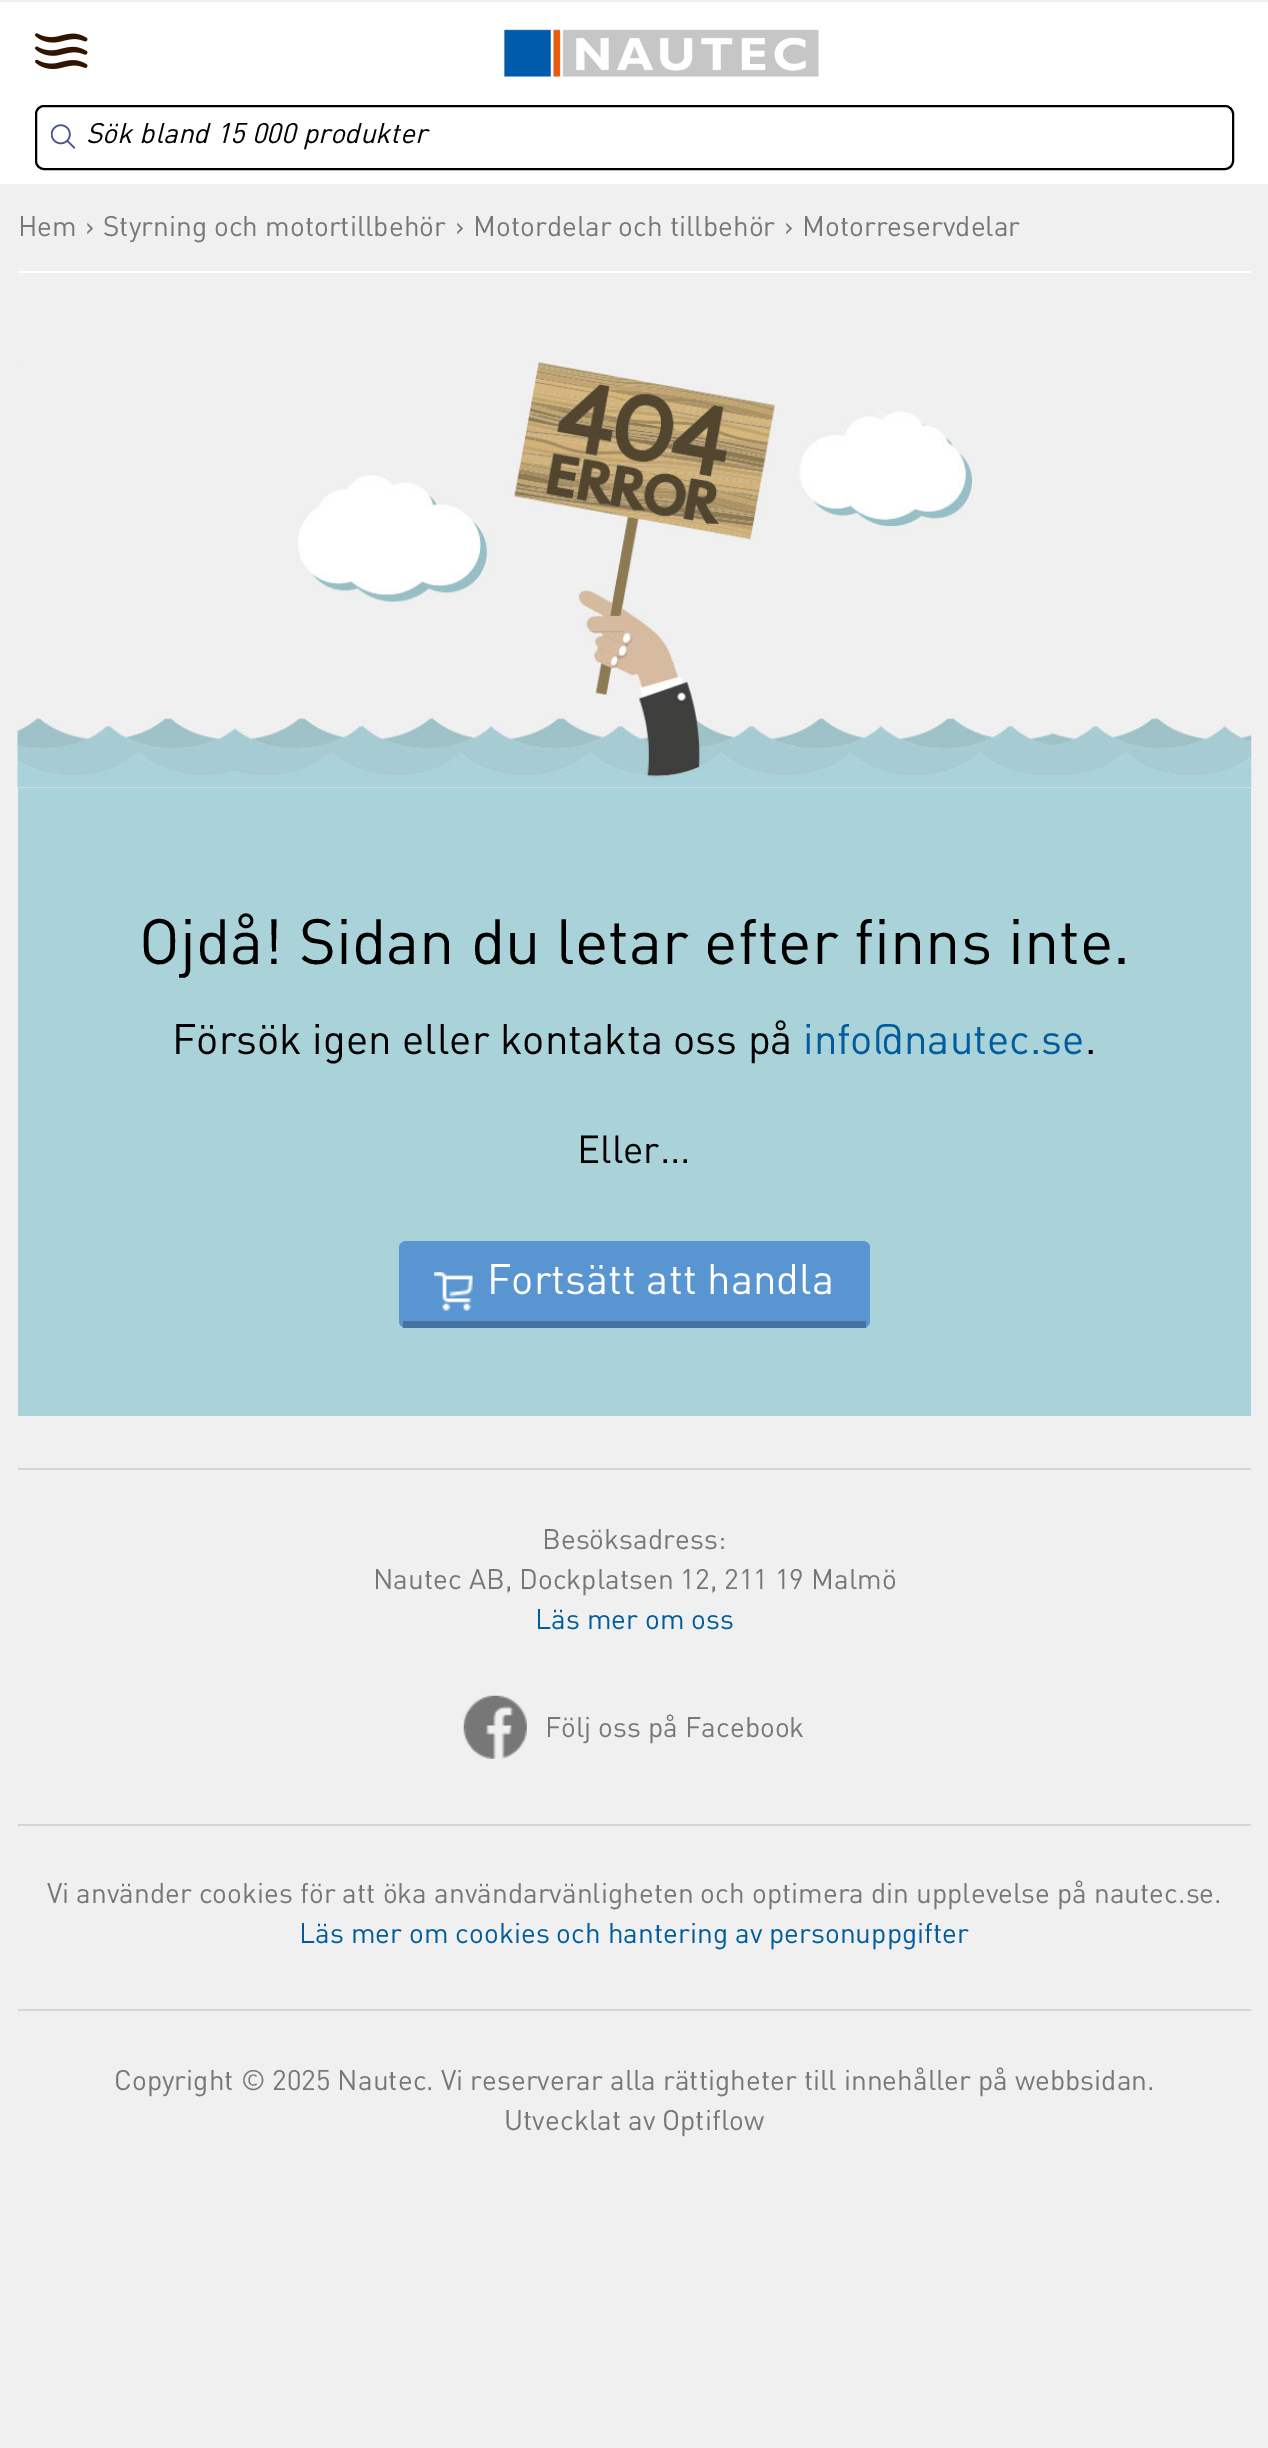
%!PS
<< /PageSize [1268 2448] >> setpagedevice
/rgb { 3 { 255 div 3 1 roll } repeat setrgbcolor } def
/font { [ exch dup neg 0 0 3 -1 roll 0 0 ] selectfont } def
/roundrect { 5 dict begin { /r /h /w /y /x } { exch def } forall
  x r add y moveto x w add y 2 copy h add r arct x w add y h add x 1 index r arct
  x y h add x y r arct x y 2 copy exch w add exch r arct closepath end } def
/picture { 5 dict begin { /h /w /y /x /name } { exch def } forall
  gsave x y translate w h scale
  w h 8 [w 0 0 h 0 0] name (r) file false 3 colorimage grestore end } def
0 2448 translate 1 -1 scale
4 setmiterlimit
240 240 240 rgb
0 0 1268 2448 rectfill
255 255 255 rgb
0 2 1268 182 rectfill
(img/1.rgb) 35 33 53 36 picture
(img/2.rgb) 504 29 315 48 picture
0 0 0 rgb
2 setlinewidth
36 106 1197 63 8 roundrect stroke
(img/3.rgb) 51 124 24 25 picture
255 255 255 rgb
18 271 1233 2 rectfill
(img/4.rgb) 17 360 1235 428 picture
170 210 217 rgb
18 788 1233 628 rectfill
89 150 209 rgb
399 1241 471 87 7 roundrect fill
(img/5.rgb) 434 1272 39 39 picture
68 115 160 rgb
403 1321 463 7 rectfill
213 213 213 rgb
18 1468 1233 2 rectfill
(img/6.rgb) 463 1695 64 64 picture
18 1824 1233 2 rectfill
18 2009 1233 2 rectfill
gsave
86 123 1097 28 rectclip
/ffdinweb-Italic 28 font
0 0 0 rgb
86 143 moveto (Sök bland 15 000 produkter) show
grestore
/ffdinweb-Regular 28 font
119 119 119 rgb
[
  [(Hem) 18 236]
  [(›) 85 236]
  [(Styrning och motortillbehör) 103 236]
  [(›) 455 236]
  [(Motordelar och tillbehör) 473 236]
  [(›) 784 236]
  [(Motorreservdelar) 802 236]
] { aload pop moveto show } forall
/ffdinweb-Regular 63 font
0 0 0 rgb
139 964 moveto (Ojdå! Sidan du letar efter finns inte.) show
/ffdinweb-Regular 42 font
172 1054 moveto (Försök igen eller kontakta oss på) show
0 92 156 rgb
803 1054 moveto (info@nautec.se) show
0 0 0 rgb
1085 1054 moveto (.) show
/ffdinweb-Regular 38.5 font
577 1163 moveto (Eller...) show
/ffdinweb-Regular 42 font
255 255 255 rgb
487 1294 moveto (Fortsätt att handla) show
/ffdinweb-Regular 28 font
119 119 119 rgb
542 1549 moveto (Besöksadress:) show
373 1589 moveto (Nautec AB, Dockplatsen 12, 211 19 Malmö) show
0 92 156 rgb
535 1629 moveto (Läs mer om oss) show
119 119 119 rgb
545 1737 moveto (Följ oss på Facebook) show
47 1903 moveto (Vi använder cookies för att öka användarvänligheten och optimera din upplevelse på nautec.se.) show
0 92 156 rgb
299 1943 moveto (Läs mer om cookies och hantering av personuppgifter) show
119 119 119 rgb
114 2090 moveto (Copyright © 2025 Nautec. Vi reserverar alla rättigheter till innehåller på webbsidan.) show
504 2130 moveto (Utvecklat av Optiflow) show
showpage
